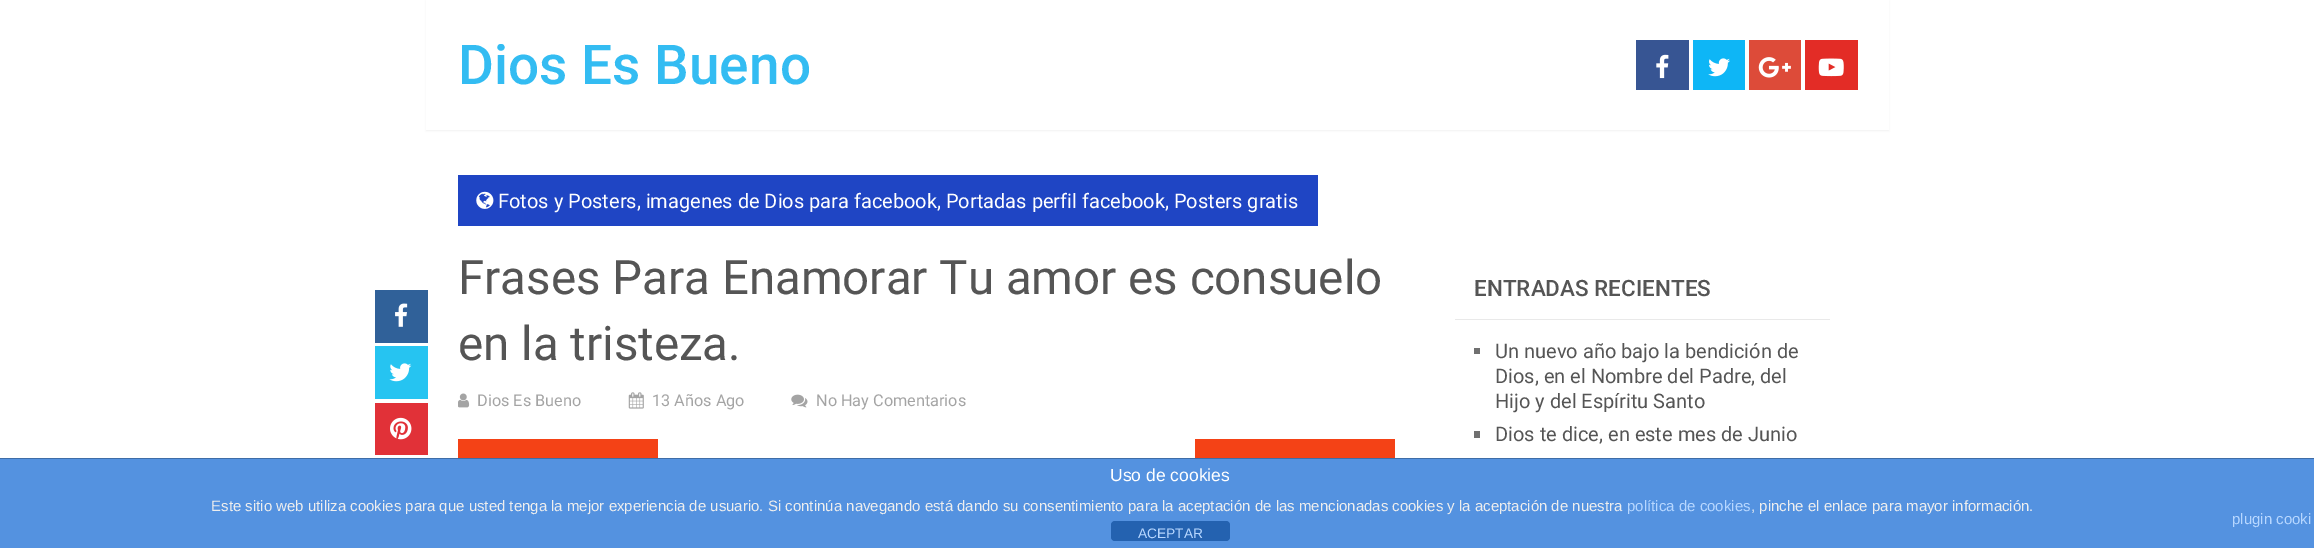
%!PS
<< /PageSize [2314 548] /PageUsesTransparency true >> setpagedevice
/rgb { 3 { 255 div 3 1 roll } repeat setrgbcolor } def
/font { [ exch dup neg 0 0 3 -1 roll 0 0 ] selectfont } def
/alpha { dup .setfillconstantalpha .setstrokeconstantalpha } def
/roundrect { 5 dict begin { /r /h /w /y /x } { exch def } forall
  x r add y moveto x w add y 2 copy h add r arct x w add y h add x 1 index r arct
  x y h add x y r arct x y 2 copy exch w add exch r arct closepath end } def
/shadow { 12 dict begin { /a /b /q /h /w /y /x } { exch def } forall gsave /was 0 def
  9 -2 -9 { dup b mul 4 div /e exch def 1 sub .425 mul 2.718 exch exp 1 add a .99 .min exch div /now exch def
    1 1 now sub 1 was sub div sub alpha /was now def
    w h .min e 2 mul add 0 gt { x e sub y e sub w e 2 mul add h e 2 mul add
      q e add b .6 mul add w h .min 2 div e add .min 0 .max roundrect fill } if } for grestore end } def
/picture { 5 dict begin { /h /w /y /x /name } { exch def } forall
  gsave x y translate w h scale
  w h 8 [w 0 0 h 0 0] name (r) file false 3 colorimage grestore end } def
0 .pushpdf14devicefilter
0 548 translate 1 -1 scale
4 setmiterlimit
255 255 255 rgb
0 0 2314 548 rectfill
0 0 0 rgb
426 1 1463 130 0 1 0.05 shadow
255 255 255 rgb
426 0 1463 130 rectfill
55 85 147 rgb
1636 40 53 50 rectfill
(img/1.rgb) 1656 54 13 25 picture
14 182 246 rgb
1693 40 52 50 rectfill
(img/2.rgb) 1708 58 22 19 picture
221 75 57 rgb
1749 40 52 50 rectfill
(img/3.rgb) 1758 57 33 21 picture
227 44 38 rgb
1805 40 53 50 rectfill
(img/4.rgb) 1818 58 26 19 picture
31 69 196 rgb
458 175 860 51 rectfill
(img/5.rgb) 476 191 18 18 picture
(img/6.rgb) 458 393 12 15 picture
(img/7.rgb) 628 392 16 17 picture
(img/8.rgb) 791 394 17 14 picture
48 97 153 rgb
375 290 53 53 rectfill
(img/9.rgb) 395 303 13 24 picture
38 196 241 rgb
375 346 53 53 rectfill
(img/10.rgb) 389 363 23 19 picture
225 49 56 rgb
375 403 53 52 rectfill
(img/11.rgb) 390 417 22 23 picture
[
  [458 439 200 19 244 66 22]
  [1195 439 200 19 244 66 22]
  [1455 319 375 1 233 233 233]
  [1474 348 6 6 112 112 112]
  [1474 431 6 7 112 112 112]
  [0 459 2314 89 84 146 224]
  [0 458 2314 1 63 109 167]
] { aload pop rgb rectfill } forall
36 98 176 rgb
1111 521 119 20 4 roundrect fill
/Roboto-Medium 55 font
51 188 242 rgb
458 84 moveto (Dios Es Bueno) show
/Roboto-Regular 20 font
255 255 255 rgb
498 208 moveto (Fotos y Posters, imagenes de Dios para facebook, Portadas perfil facebook, Posters gratis) show
/Roboto-Regular 47.5 font
85 85 85 rgb
458 294 moveto (Frases Para Enamorar Tu amor es consuelo) show
458 360 moveto (en la tristeza.) show
/Roboto-Regular 16.25 font
164 164 164 rgb
[
  [(Dios Es Bueno) 477 406]
  [(13 Años Ago) 652 406]
  [(No Hay Comentarios) 816 406]
] { aload pop moveto show } forall
/Roboto-Medium 22.5 font
85 85 85 rgb
1474 296 moveto (ENTRADAS RECIENTES) show
/Roboto-Regular 20 font
[
  [(Un nuevo año bajo la bendición de) 1495 358]
  [(Dios, en el Nombre del Padre, del) 1495 383]
  [(Hijo y del Espíritu Santo) 1495 408]
  [(Dios te dice, en este mes de Junio) 1495 441]
] { aload pop moveto show } forall
/LiberationSans-Regular 17.5 font
255 255 255 rgb
1110 481 moveto (Uso de cookies) show
/LiberationSans-Regular 15 font
238 238 238 rgb
211 511 moveto (Este sitio web utiliza cookies para que usted tenga la mejor experiencia de usuario. Si continúa navegando está dando su consentimiento para la aceptación de las mencionadas cookies y la aceptación de nuestra) show
183 215 255 rgb
1627 511 moveto (política de cookies) show
238 238 238 rgb
1751 511 moveto (, pinche el enlace para mayor información.) show
183 215 255 rgb
2232 524 moveto (plugin cooki) show
/LiberationSans-Regular 13.75 font
1138 538 moveto (ACEPTAR) show
.poppdf14devicefilter showpage
